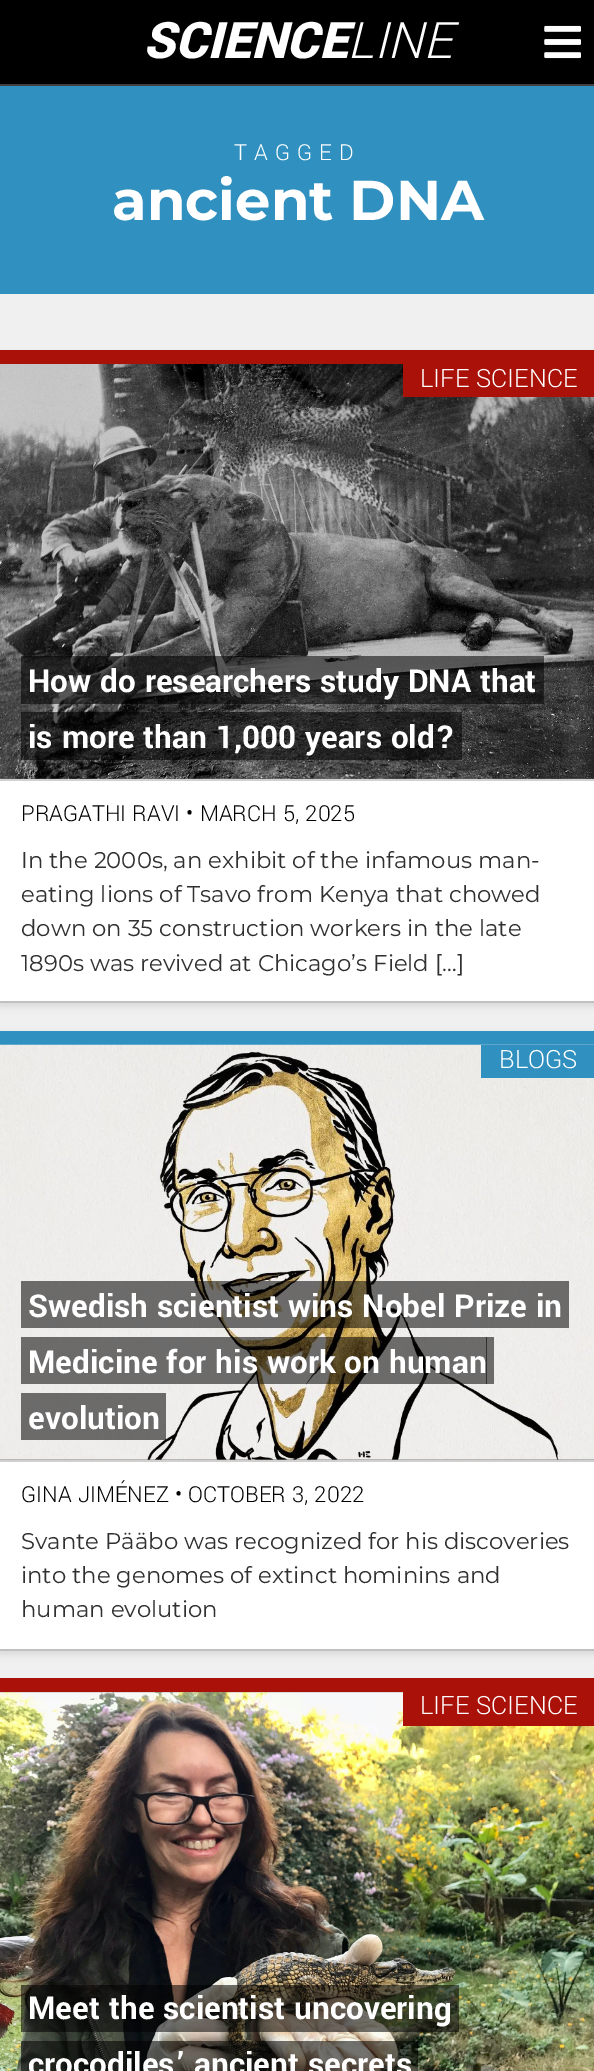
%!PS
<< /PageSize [594 2071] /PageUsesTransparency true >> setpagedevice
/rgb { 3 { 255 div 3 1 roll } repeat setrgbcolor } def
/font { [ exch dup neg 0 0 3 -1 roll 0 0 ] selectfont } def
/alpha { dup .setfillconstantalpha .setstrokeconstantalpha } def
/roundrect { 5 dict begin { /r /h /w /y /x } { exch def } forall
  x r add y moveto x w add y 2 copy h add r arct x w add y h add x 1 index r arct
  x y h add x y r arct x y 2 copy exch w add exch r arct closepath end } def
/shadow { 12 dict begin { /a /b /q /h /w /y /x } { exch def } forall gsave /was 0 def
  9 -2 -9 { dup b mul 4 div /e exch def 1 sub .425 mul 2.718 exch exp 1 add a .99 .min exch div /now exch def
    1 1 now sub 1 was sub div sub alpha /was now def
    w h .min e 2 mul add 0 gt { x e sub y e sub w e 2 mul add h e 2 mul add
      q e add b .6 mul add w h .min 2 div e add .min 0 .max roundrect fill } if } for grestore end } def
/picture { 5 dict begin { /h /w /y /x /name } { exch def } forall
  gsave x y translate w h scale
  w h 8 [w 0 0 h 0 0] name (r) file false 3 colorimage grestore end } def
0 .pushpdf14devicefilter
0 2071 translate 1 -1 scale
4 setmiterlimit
48 144 192 rgb
0 0 594 2071 rectfill
0 0 0 rgb
0 0 594 84 rectfill
64 64 64 rgb
0 84 594 2 rectfill
(img/1.rgb) 544 25 37 34 picture
240 240 240 rgb
0 294 594 1399 rectfill
0 0 0 rgb
0 354 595 652 0 3.5 0.1 shadow
[
  [0 778 594 223 255 255 255]
  [0 350 594 14 169 17 9]
  [0 1001 594 2 192 192 192]
] { aload pop rgb rectfill } forall
(img/2.rgb) 0 364 594 415 picture
169 17 9 rgb
403 364 191 33 rectfill
0.55 alpha
0 0 0 rgb
21 656 moveto 21 704 lineto 530 704 lineto 28 704 lineto 28 656 lineto 530 656 lineto closepath fill
35 656 moveto 537 656 lineto 537 704 lineto 35 704 lineto 544 704 lineto 544 656 lineto closepath fill
28 656 509 48 rectfill
21 712 moveto 21 760 lineto 448 760 lineto 28 760 lineto 28 712 lineto 448 712 lineto closepath fill
35 712 moveto 455 712 lineto 455 760 lineto 35 760 lineto 462 760 lineto 462 712 lineto closepath fill
28 712 427 48 rectfill
1 alpha
208 208 208 rgb
0 779 594 2 rectfill
0 0 0 rgb
0 1034 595 620 0 3.5 0.1 shadow
[
  [0 1462 594 187 255 255 255]
  [0 1031 594 14 48 144 192]
  [0 1649 594 2 192 192 192]
  [0 1459 594 1 128 128 128]
] { aload pop rgb rectfill } forall
(img/3.rgb) 0 1044 594 416 picture
[
  [481 1045 113 33 48 144 192]
] { aload pop rgb rectfill } forall
0.55 alpha
[
  [21 1281 7 47 0 0 0]
  [562 1281 7 47 0 0 0]
  [28 1281 534 47 0 0 0]
  [21 1337 7 47 0 0 0]
  [486 1337 8 47 0 0 0]
  [28 1337 459 47 0 0 0]
  [21 1393 7 47 0 0 0]
  [159 1393 7 47 0 0 0]
  [28 1393 131 47 0 0 0]
] { aload pop rgb rectfill } forall
1 alpha
[
  [0 1460 594 2 208 208 208]
  [0 1678 594 14 169 17 9]
] { aload pop rgb rectfill } forall
(img/4.rgb) 0 1692 594 379 picture
403 1692 191 34 rectfill
0.55 alpha
0 0 0 rgb
21 1985 moveto 21 2032 lineto 445 2032 lineto 28 2032 lineto 28 1985 lineto closepath fill
35 2032 moveto 459 2032 lineto 459 1985 lineto 452 1985 lineto 452 2032 lineto closepath fill
28 1985 424 47 rectfill
21 2041 moveto 21 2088 lineto 404 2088 lineto 28 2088 lineto 28 2041 lineto closepath fill
35 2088 moveto 418 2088 lineto 418 2041 lineto 411 2041 lineto 411 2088 lineto closepath fill
28 2041 383 30 rectfill
/Yantramanav-BlackItalic 56 font
1 alpha
255 255 255 rgb
143 58 moveto (SCIENCE) show
/Yantramanav-LightItalic 56 font
347 58 moveto (LINE) show
/Yantramanav-Light 24.5 font
234 160 moveto 7 0 (TAGGED) ashow
/Montserrat-Bold 56 font
112 220 moveto (ancient DNA) show
/Yantramanav-Light 28 font
420 387 moveto (LIFE SCIENCE) show
/Yantramanav-Bold 35 font
28 692 moveto (How do researchers study DNA that) show
28 748 moveto (is more than 1,000 years old?) show
/Yantramanav-Light 24.5 font
0 0 0 rgb
21 821 moveto (PRAGATHI RAVI • MARCH 5, 2025) show
/Montserrat-Regular 22.75 font
48 48 48 rgb
[
  [(In the 2000s, an exhibit of the infamous man-) 21 868]
  [(eating lions of Tsavo from Kenya that chowed) 21 902]
  [(down on 35 construction workers in the late) 21 936]
  [(1890s was revived at Chicago’s Field […]) 21 971]
] { aload pop moveto show } forall
/Yantramanav-Light 28 font
255 255 255 rgb
499 1068 moveto (BLOGS) show
/Yantramanav-Bold 35 font
[
  [(Swedish scientist wins Nobel Prize in) 28 1317]
  [(Medicine for his work on human) 28 1373]
  [(evolution) 28 1429]
] { aload pop moveto show } forall
/Yantramanav-Light 24.5 font
0 0 0 rgb
21 1502 moveto (GINA JIMÉNEZ • OCTOBER 3, 2022) show
/Montserrat-Regular 22.75 font
48 48 48 rgb
[
  [(Svante Pääbo was recognized for his discoveries) 21 1549]
  [(into the genomes of extinct hominins and) 21 1583]
  [(human evolution) 21 1617]
] { aload pop moveto show } forall
/Yantramanav-Light 28 font
255 255 255 rgb
420 1714 moveto (LIFE SCIENCE) show
/Yantramanav-Bold 35 font
28 2019 moveto (Meet the scientist uncovering) show
28 2075 moveto (crocodiles’ ancient secrets) show
.poppdf14devicefilter showpage
